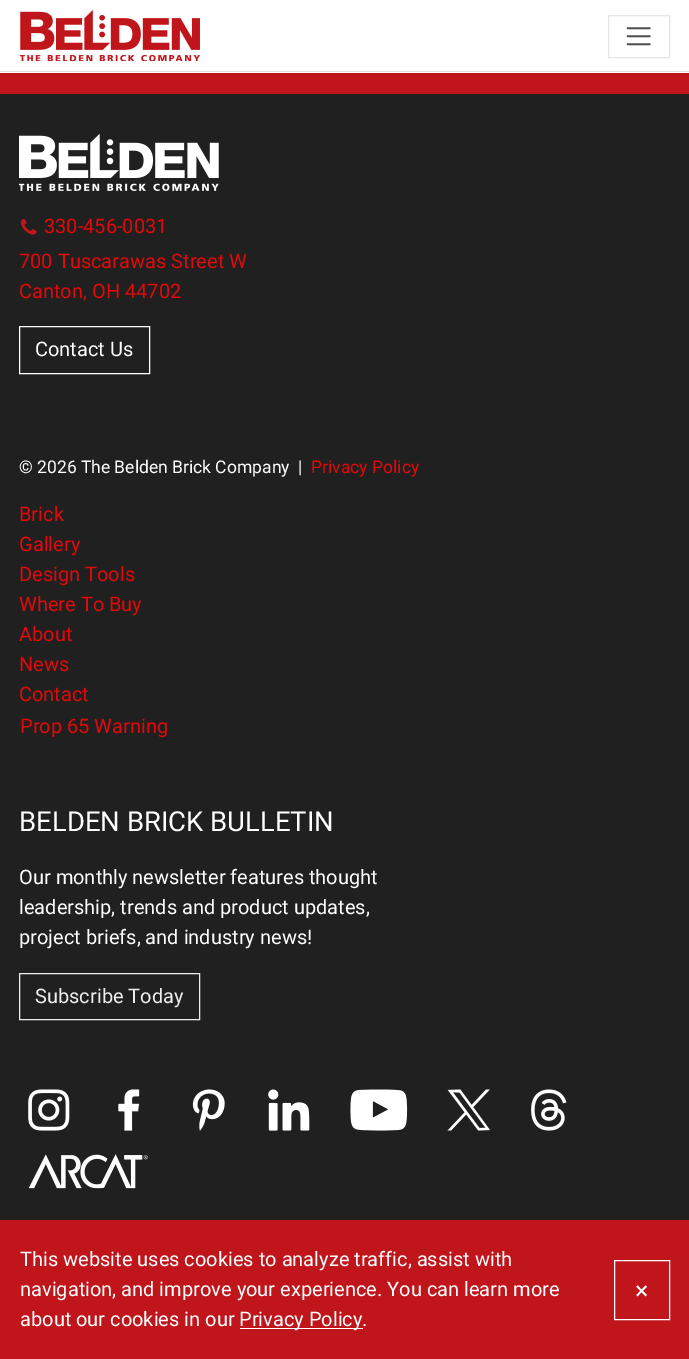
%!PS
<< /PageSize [689 1359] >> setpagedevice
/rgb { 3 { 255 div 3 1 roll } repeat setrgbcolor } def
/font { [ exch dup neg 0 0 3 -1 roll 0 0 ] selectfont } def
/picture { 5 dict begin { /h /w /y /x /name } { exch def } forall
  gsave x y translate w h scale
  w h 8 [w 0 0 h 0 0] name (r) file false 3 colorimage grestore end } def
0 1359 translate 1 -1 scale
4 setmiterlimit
192 21 27 rgb
0 0 689 1359 rectfill
255 255 255 rgb
0 0 689 73 rectfill
222 226 230 rgb
0 71 689 1 rectfill
(img/1.rgb) 20 10 180 51 picture
230 230 230 rgb
608.5 15.5 61 42 rectstroke
(img/2.rgb) 626 27 25 19 picture
32 32 32 rgb
0 94 689 1126 rectfill
(img/3.rgb) 19 134 200 57 picture
(img/4.rgb) 20 218 17 17 picture
255 255 255 rgb
19.5 326.5 130 47 rectstroke
237 238 239 rgb
19.5 973.5 180 46 rectstroke
(img/5.rgb) 28 1089 42 42 picture
(img/6.rgb) 118 1089 22 42 picture
(img/7.rgb) 192 1089 33 42 picture
(img/8.rgb) 268 1089 42 42 picture
(img/9.rgb) 350 1089 58 42 picture
(img/10.rgb) 447 1089 43 42 picture
(img/11.rgb) 531 1089 36 42 picture
(img/12.rgb) 29 1154 119 35 picture
255 255 255 rgb
240 1328 123 1 rectfill
614.5 1260.5 55 59 rectstroke
/Roboto-Regular 20 font
225 9 9 rgb
[
  [(330-456-0031) 44 233]
  [(700 Tuscarawas Street W) 19 268]
  [(Canton, OH 44702) 19 298]
] { aload pop moveto show } forall
255 255 255 rgb
35 356 moveto (Contact Us) show
/Roboto-Regular 17.5 font
19 473 moveto (© 2026 The Belden Brick Company) show
298 473 moveto (|) show
225 9 9 rgb
311 473 moveto (Privacy Policy) show
/Roboto-Regular 20 font
[
  [(Brick) 19 521]
  [(Gallery) 19 551]
  [(Design Tools) 19 581]
  [(Where To Buy) 19 611]
  [(About) 19 641]
  [(News) 19 671]
  [(Contact) 19 701]
  [(Prop 65 Warning) 20 733]
] { aload pop moveto show } forall
/Roboto-Regular 27.5 font
255 255 255 rgb
19 831 moveto (BELDEN BRICK BULLETIN) show
/Roboto-Regular 20 font
[
  [(Our monthly newsletter features thought) 19 884]
  [(leadership, trends and product updates,) 19 914]
  [(project briefs, and industry news!) 19 944]
] { aload pop moveto show } forall
237 238 239 rgb
35 1003 moveto (Subscribe Today) show
255 255 255 rgb
[
  [(This website uses cookies to analyze traffic, assist with) 20 1266]
  [(navigation, and improve your experience. You can learn more) 20 1296]
  [(about our cookies in our) 20 1326]
  [(Privacy Policy.) 239 1326]
] { aload pop moveto show } forall
/Roboto-Regular 25 font
635 1299 moveto (×) show
showpage
